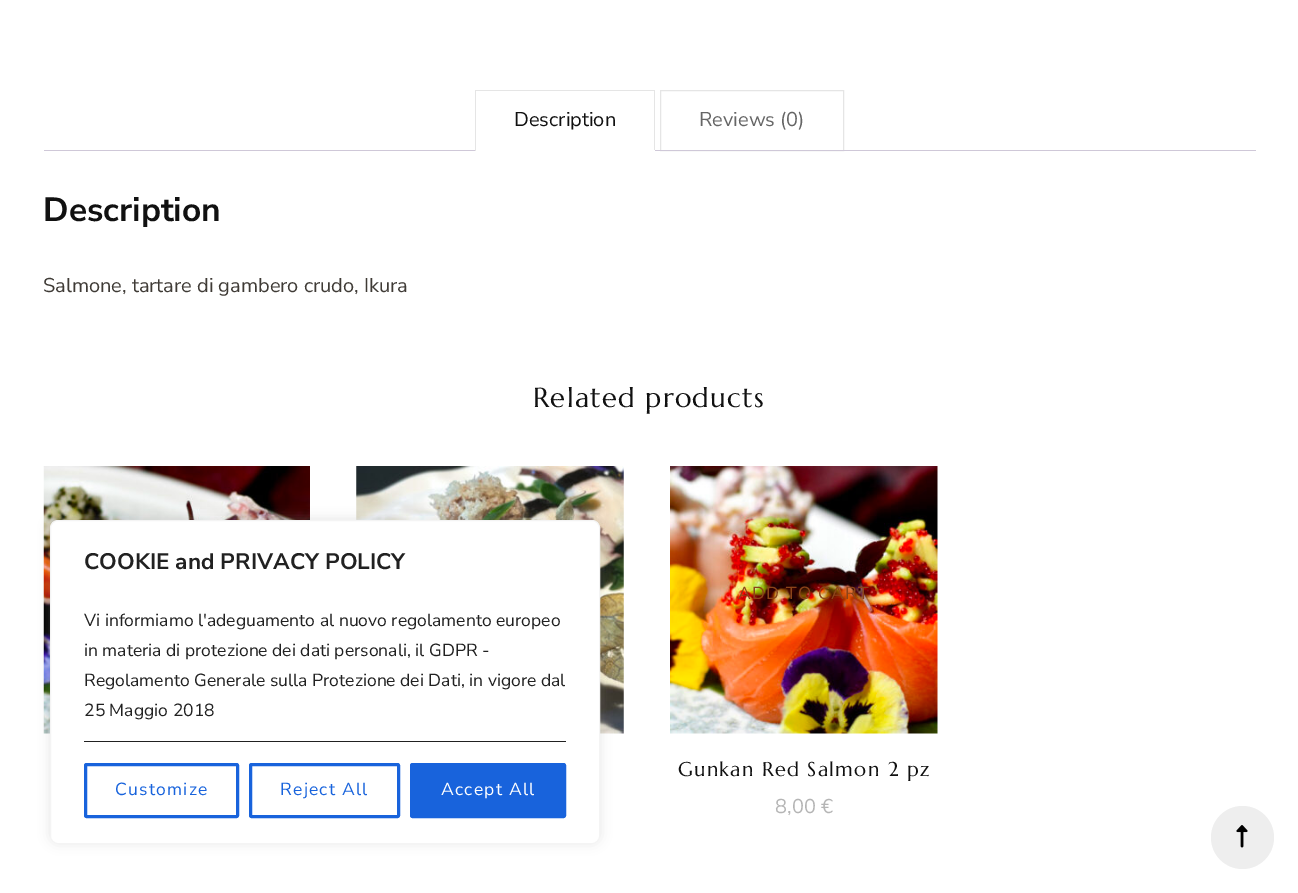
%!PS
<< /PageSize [1298 893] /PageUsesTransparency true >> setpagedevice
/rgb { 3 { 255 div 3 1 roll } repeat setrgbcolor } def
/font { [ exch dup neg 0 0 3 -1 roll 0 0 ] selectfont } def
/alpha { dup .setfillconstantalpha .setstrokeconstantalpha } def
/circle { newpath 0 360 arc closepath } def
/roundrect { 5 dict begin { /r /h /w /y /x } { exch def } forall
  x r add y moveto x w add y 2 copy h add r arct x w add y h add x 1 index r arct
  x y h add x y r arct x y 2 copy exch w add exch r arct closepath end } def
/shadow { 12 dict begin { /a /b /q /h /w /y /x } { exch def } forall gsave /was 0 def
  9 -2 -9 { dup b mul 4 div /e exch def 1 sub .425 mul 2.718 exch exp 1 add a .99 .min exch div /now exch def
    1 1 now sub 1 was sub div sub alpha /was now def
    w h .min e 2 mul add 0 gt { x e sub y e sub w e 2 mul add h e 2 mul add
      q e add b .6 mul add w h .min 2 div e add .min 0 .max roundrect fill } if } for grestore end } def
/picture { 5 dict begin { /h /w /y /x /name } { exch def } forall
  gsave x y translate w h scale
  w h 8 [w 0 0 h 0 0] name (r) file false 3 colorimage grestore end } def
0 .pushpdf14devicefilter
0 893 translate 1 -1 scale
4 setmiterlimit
255 255 255 rgb
0 0 1298 893 rectfill
229 229 229 rgb
475 90 180 1 rectfill
660.5 90.5 183 60 rectstroke
[
  [44 150 1212 1 207 200 216]
  [654 90 1 61 229 229 229]
  [475 150 180 1 255 255 255]
  [475 90 1 61 229 229 229]
] { aload pop rgb rectfill } forall
(img/1.rgb) 43 466 267 268 picture
(img/2.rgb) 356 466 268 268 picture
(img/3.rgb) 670 466 268 268 picture
238 238 238 rgb
1242.5 837.5 31.5 circle fill
(img/4.rgb) 1236 825 12 23 picture
172 171 171 rgb
50 519 550 324 8 6 0.3 shadow
255 255 255 rgb
50.5 520.5 549 323 7.5 roundrect gsave fill grestore
244 244 244 rgb
stroke
33 33 33 rgb
84 741 482 1 rectfill
24 99 220 rgb
3 setlinewidth
85.5 764.5 152 52 1 roundrect stroke
250.5 764.5 148 52 1 roundrect stroke
411.5 764.5 153 52 1 roundrect gsave fill grestore
stroke
/NunitoSans-Regular 20 font
17 17 17 rgb
514 126 moveto (Description) show
102 102 102 rgb
699 126 moveto (Reviews \(0\)) show
/NunitoSans-Bold 33.5 font
17 17 17 rgb
43 221 moveto (Description) show
/NunitoSans-Regular 20 font
63 59 54 rgb
43 292 moveto (Salmone, tartare di gambero crudo, Ikura) show
/Marcellus-Regular 27.5 font
17 17 17 rgb
533 407 moveto 1.25 0 (Related products) ashow
/NunitoSans-Regular 17.5 font
140 68 25 rgb
738 599 moveto 1.25 0 (ADD TO CART) ashow
/Marcellus-Regular 20 font
17 17 17 rgb
678 776 moveto 1.25 0 (Gunkan Red Salmon 2 pz) ashow
/NunitoSans-Regular 20 font
181 181 181 rgb
775 813 moveto (8,00 €) show
/NunitoSans-Bold 22.5 font
33 33 33 rgb
84 569 moveto (COOKIE and PRIVACY POLICY) show
/NunitoSans-Regular 17.5 font
[
  [(Vi informiamo l'adeguamento al nuovo regolamento europeo) 84 626]
  [(in materia di protezione dei dati personali, il GDPR -) 84 656]
  [(Regolamento Generale sulla Protezione dei Dati, in vigore dal) 84 686]
  [(25 Maggio 2018) 84 716]
] { aload pop moveto show } forall
24 99 220 rgb
115 795 moveto 1.25 0 (Customize) ashow
280 795 moveto 1.25 0 (Reject All) ashow
255 255 255 rgb
441 795 moveto 1.25 0 (Accept All) ashow
.poppdf14devicefilter showpage
